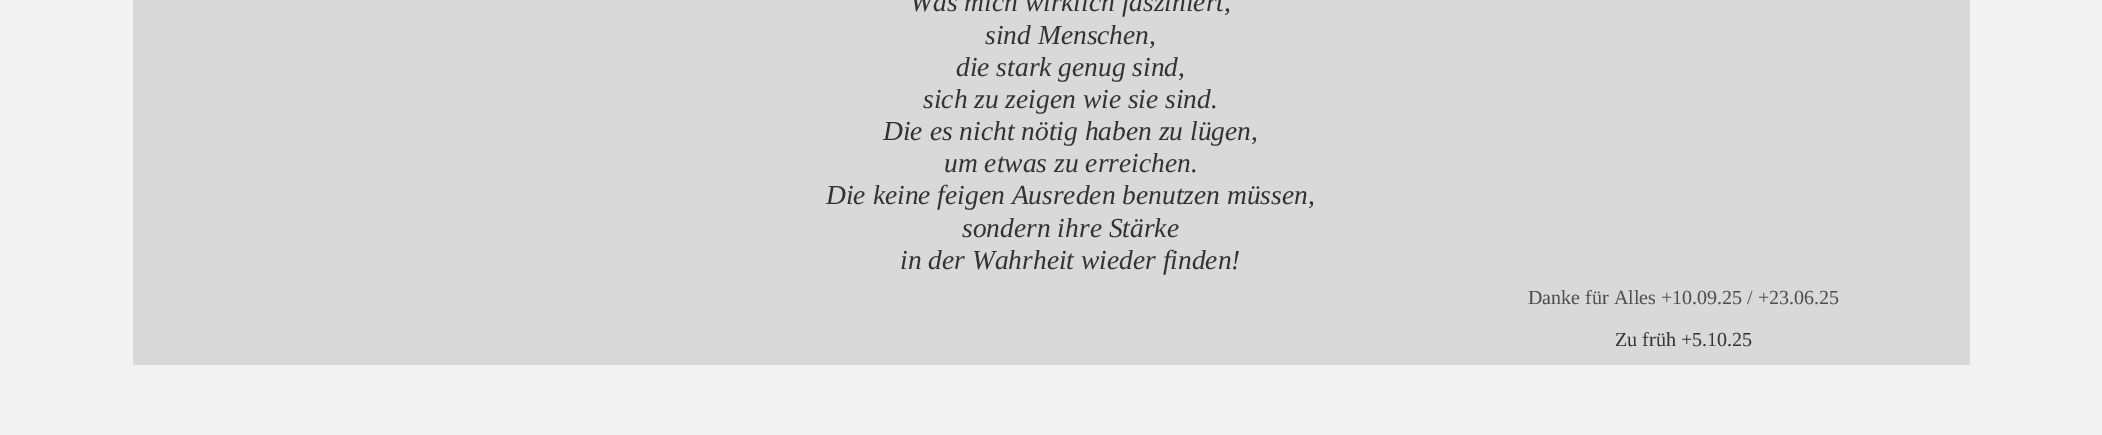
%!PS
<< /PageSize [2102 435] >> setpagedevice
/rgb { 3 { 255 div 3 1 roll } repeat setrgbcolor } def
/font { [ exch dup neg 0 0 3 -1 roll 0 0 ] selectfont } def
0 435 translate 1 -1 scale
4 setmiterlimit
242 242 242 rgb
0 0 2102 435 rectfill
217 217 217 rgb
133 0 1837 365 rectfill
/LiberationSerif-Italic 27.5 font
51 51 51 rgb
[
  [(Was mich wirklich fasziniert,) 910 11]
  [(sind Menschen,) 985 44]
  [(die stark genug sind,) 956 76]
  [(sich zu zeigen wie sie sind.) 923 108]
  [(Die es nicht nötig haben zu lügen,) 883 140]
  [(um etwas zu erreichen.) 944 172]
  [(Die keine feigen Ausreden benutzen müssen,) 826 204]
  [(sondern ihre Stärke) 962 237]
  [(in der Wahrheit wieder finden!) 900 269]
] { aload pop moveto show } forall
/LiberationSerif-Regular 20 font
77 77 77 rgb
1528 304 moveto (Danke für Alles +10.09.25 / +23.06.25) show
51 51 51 rgb
1615 346 moveto (Zu früh +5.10.25) show
showpage
